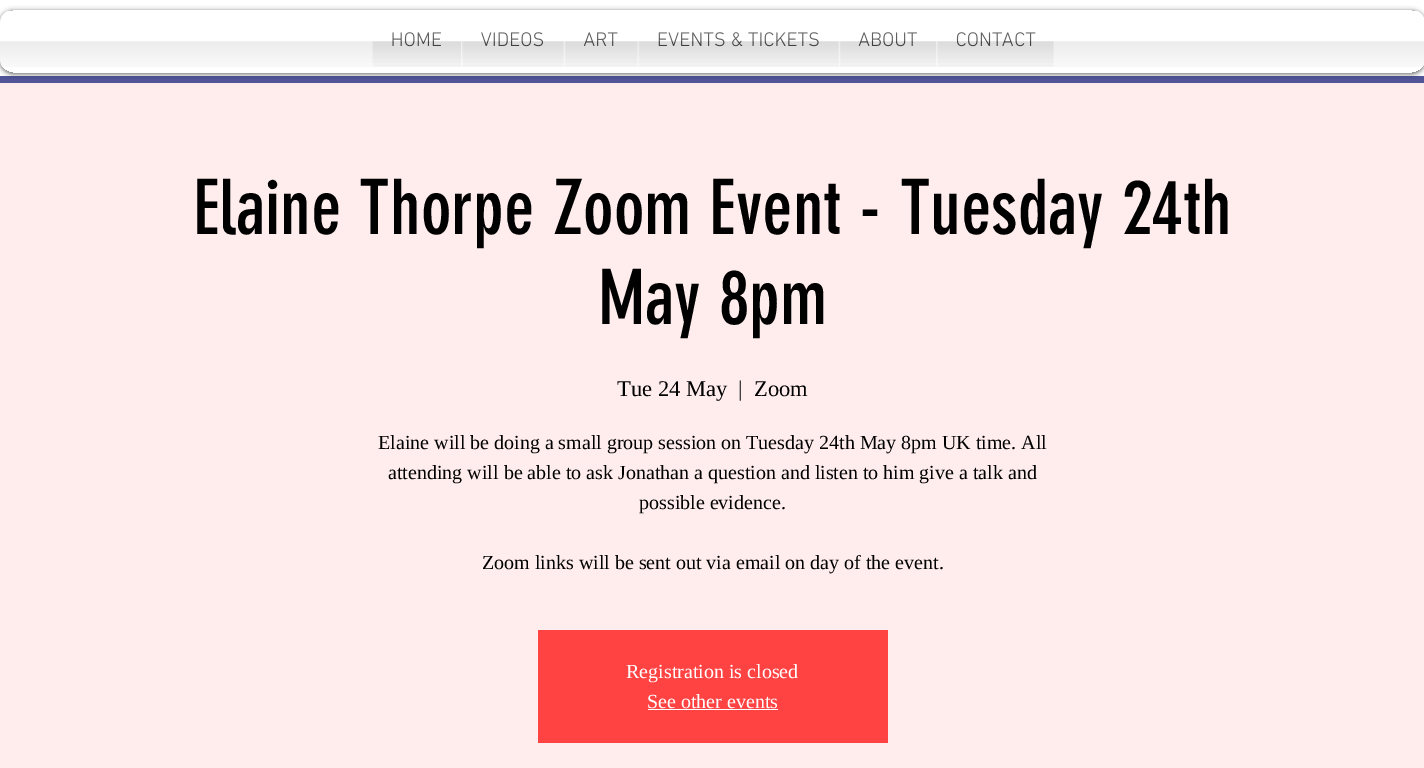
%!PS
<< /PageSize [1424 768] /PageUsesTransparency true >> setpagedevice
/rgb { 3 { 255 div 3 1 roll } repeat setrgbcolor } def
/font { [ exch dup neg 0 0 3 -1 roll 0 0 ] selectfont } def
/alpha { dup .setfillconstantalpha .setstrokeconstantalpha } def
/roundrect { 5 dict begin { /r /h /w /y /x } { exch def } forall
  x r add y moveto x w add y 2 copy h add r arct x w add y h add x 1 index r arct
  x y h add x y r arct x y 2 copy exch w add exch r arct closepath end } def
/shadow { 12 dict begin { /a /b /q /h /w /y /x } { exch def } forall gsave /was 0 def
  9 -2 -9 { dup b mul 4 div /e exch def 1 sub .425 mul 2.718 exch exp 1 add a .99 .min exch div /now exch def
    1 1 now sub 1 was sub div sub alpha /was now def
    w h .min e 2 mul add 0 gt { x e sub y e sub w e 2 mul add h e 2 mul add
      q e add b .6 mul add w h .min 2 div e add .min 0 .max roundrect fill } if } for grestore end } def
/picture { 5 dict begin { /h /w /y /x /name } { exch def } forall
  gsave x y translate w h scale
  w h 8 [w 0 0 h 0 0] name (r) file false 3 colorimage grestore end } def
0 .pushpdf14devicefilter
0 768 translate 1 -1 scale
4 setmiterlimit
255 237 237 rgb
0 0 1424 768 rectfill
255 255 255 rgb
0 0 1424 76 rectfill
81 85 152 rgb
0 76 1424 7 rectfill
gsave
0 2 moveto 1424 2 lineto 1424 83 lineto 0 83 lineto closepath 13 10 moveto 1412 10 lineto 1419 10 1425 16 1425 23 curveto 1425 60 lineto 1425 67 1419 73 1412 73 curveto 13 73 lineto 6 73 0 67 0 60 curveto 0 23 lineto 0 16 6 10 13 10 curveto closepath eoclip newpath
0 0 0 rgb
0 11 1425 63 13 2.5 0.6 shadow
grestore
(img/1.rgb) 0 11 1424 56 picture
255 66 66 rgb
538 630 350 113 rectfill
255 255 255 rgb
648 709 130 1 rectfill
/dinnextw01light-Light 20 font
68 68 68 rgb
391 46 moveto (HOME) show
(img/2.rgb) 372 32 89 35 picture
481 46 moveto (VIDEOS) show
(img/3.rgb) 462 32 102 35 picture
583 46 moveto (ART) show
(img/4.rgb) 565 32 73 35 picture
657 46 moveto (EVENTS & TICKETS) show
(img/5.rgb) 638 32 201 35 picture
858 46 moveto (ABOUT) show
(img/6.rgb) 840 32 96 35 picture
956 46 moveto (CONTACT) show
(img/7.rgb) 937 32 117 35 picture
/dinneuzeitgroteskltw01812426-Regular 75 font
0 0 0 rgb
193 234 moveto (Elaine Thorpe Zoom Event - Tuesday 24th) show
598 324 moveto (May 8pm) show
/LiberationSerif-Regular 22.5 font
[
  [(Tue 24 May) 617 396]
  [(|) 738 396]
  [(Zoom) 754 396]
] { aload pop moveto show } forall
/LiberationSerif-Regular 20 font
[
  [(Elaine will be doing a small group session on Tuesday 24th May 8pm UK time. All) 378 449]
  [(attending will be able to ask Jonathan a question and listen to him give a talk and) 388 479]
  [(possible evidence.) 639 509]
  [(Zoom links will be sent out via email on day of the event.) 482 569]
] { aload pop moveto show } forall
255 255 255 rgb
626 678 moveto (Registration is closed) show
647 708 moveto (See other events) show
.poppdf14devicefilter showpage
